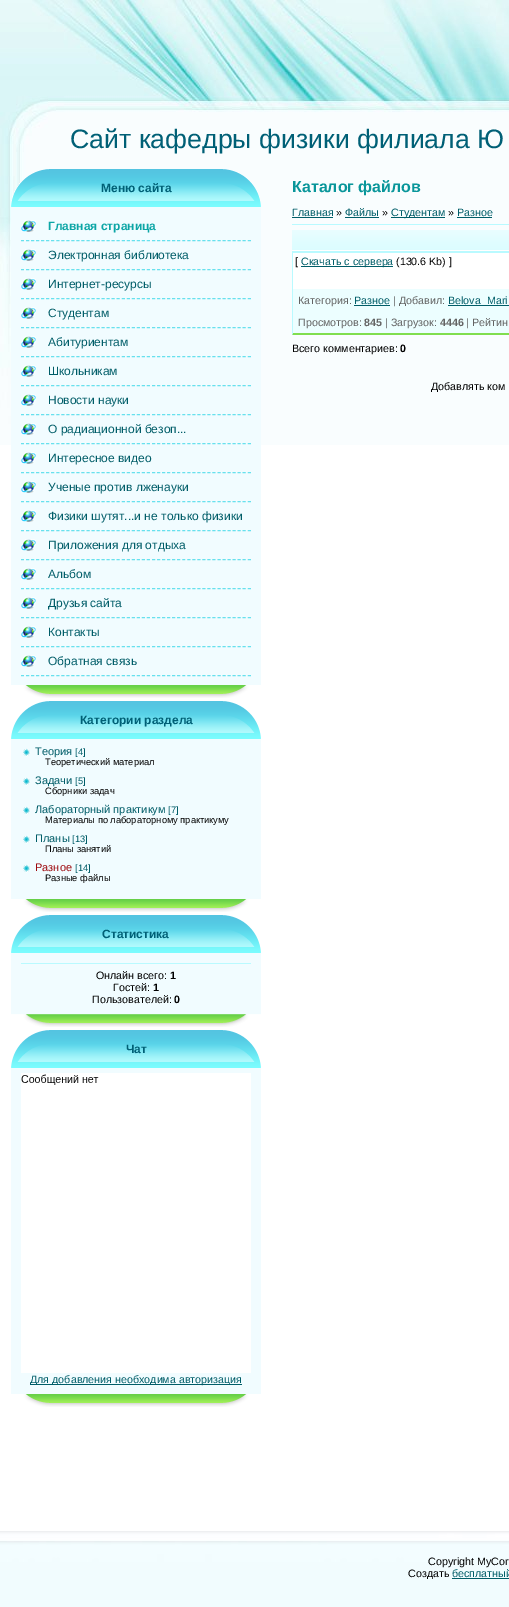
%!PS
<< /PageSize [509 1607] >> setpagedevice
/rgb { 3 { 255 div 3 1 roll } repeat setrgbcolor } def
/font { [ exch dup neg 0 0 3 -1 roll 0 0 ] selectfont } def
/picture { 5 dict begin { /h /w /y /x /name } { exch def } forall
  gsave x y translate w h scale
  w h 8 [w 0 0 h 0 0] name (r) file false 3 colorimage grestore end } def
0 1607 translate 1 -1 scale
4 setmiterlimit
255 255 255 rgb
0 0 509 1607 rectfill
(img/1.rgb) 0 1531 509 76 picture
(img/2.rgb) 0 0 509 445 picture
(img/3.rgb) 11 169 250 38 picture
(img/4.rgb) 11 207 250 491 picture
(img/5.rgb) 21 220 15 12 picture
103 225 238 rgb
[3 2.04] 0 setdash
21 240.5 moveto 251 240.5 lineto stroke
(img/5.rgb) 21 249 15 12 picture
21 269.5 moveto 251 269.5 lineto stroke
(img/5.rgb) 21 278 15 12 picture
21 298.5 moveto 251 298.5 lineto stroke
(img/5.rgb) 21 307 15 12 picture
21 327.5 moveto 251 327.5 lineto stroke
(img/5.rgb) 21 336 15 12 picture
21 356.5 moveto 251 356.5 lineto stroke
(img/5.rgb) 21 365 15 12 picture
21 385.5 moveto 251 385.5 lineto stroke
(img/5.rgb) 21 394 15 12 picture
21 414.5 moveto 251 414.5 lineto stroke
(img/5.rgb) 21 423 15 12 picture
21 443.5 moveto 251 443.5 lineto stroke
(img/5.rgb) 21 452 15 12 picture
21 472.5 moveto 251 472.5 lineto stroke
(img/5.rgb) 21 481 15 12 picture
21 501.5 moveto 251 501.5 lineto stroke
(img/5.rgb) 21 510 15 12 picture
21 530.5 moveto 251 530.5 lineto stroke
(img/5.rgb) 21 539 15 12 picture
21 559.5 moveto 251 559.5 lineto stroke
(img/5.rgb) 21 568 15 12 picture
21 588.5 moveto 251 588.5 lineto stroke
(img/5.rgb) 21 597 15 12 picture
21 617.5 moveto 251 617.5 lineto stroke
(img/5.rgb) 21 626 15 12 picture
21 646.5 moveto 251 646.5 lineto stroke
(img/5.rgb) 21 655 15 12 picture
21 675.5 moveto 251 675.5 lineto stroke
(img/6.rgb) 11 701 250 38 picture
(img/7.rgb) 11 739 250 173 picture
(img/8.rgb) 23 748 8 9 picture
(img/8.rgb) 23 777 8 9 picture
(img/8.rgb) 23 806 8 9 picture
(img/8.rgb) 23 835 8 9 picture
(img/8.rgb) 23 864 8 9 picture
(img/6.rgb) 11 915 250 38 picture
(img/9.rgb) 11 953 250 74 picture
185 250 255 rgb
21 963 230 1 rectfill
(img/6.rgb) 11 1030 250 38 picture
(img/10.rgb) 11 1068 250 339 picture
(img/11.rgb) 21 1073 230 300 picture
[
  [30 1384 212 1 0 93 104]
  [292 217 41 1 0 93 104]
  [345 217 34 1 0 93 104]
  [391 217 54 1 0 93 104]
  [457 217 35 1 0 93 104]
  [292 224 217 1 185 250 255]
] { aload pop rgb rectfill } forall
(img/12.rgb) 292 230 217 22 picture
255 255 255 rgb
293 253 216 36 rectfill
185 250 255 rgb
292 252 217 1 rectfill
128 222 79 rgb
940 335 moveto 292 335 lineto 293 333 lineto 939 333 lineto closepath fill
185 250 255 rgb
292 335 moveto 292 252 lineto 293 253 lineto 293 333 lineto closepath fill
[
  [301 266 92 1 0 93 104]
  [293 289 216 44 236 254 255]
  [354 305 36 1 0 93 104]
  [448 305 61 1 0 93 104]
  [452 1578 57 1 0 93 104]
] { aload pop rgb rectfill } forall
/LiberationSans-Regular 26.7 font
0 96 118 rgb
70 148 moveto (Сайт кафедры физики филиала Ю) show
/LiberationSans-Bold 12 font
101 192 moveto (Меню сайта) show
12 166 166 rgb
48 230 moveto (Главная страница) show
/LiberationSans-Regular 12 font
0 93 104 rgb
[
  [(Электронная библиотека) 48 259]
  [(Интернет-ресурсы) 48 288]
  [(Студентам) 48 317]
  [(Абитуриентам) 48 346]
  [(Школьникам) 48 375]
  [(Новости науки) 48 404]
  [(О радиационной безоп...) 48 433]
  [(Интересное видео) 48 462]
  [(Ученые против лженауки) 48 491]
  [(Физики шутят...и не только физики) 48 520]
  [(Приложения для отдыха) 48 549]
  [(Альбом) 48 578]
  [(Друзья сайта) 48 607]
  [(Контакты) 48 636]
  [(Обратная связь) 48 665]
] { aload pop moveto show } forall
/LiberationSans-Bold 12 font
0 96 118 rgb
80 724 moveto (Категории раздела) show
/LiberationSans-Regular 11 font
0 93 104 rgb
35 755 moveto (Теория) show
/LiberationSans-Regular 9.3 font
75 755 moveto ([4]) show
0 0 0 rgb
45 765 moveto (Теоретический материал) show
/LiberationSans-Regular 11 font
0 93 104 rgb
35 784 moveto (Задачи) show
/LiberationSans-Regular 9.3 font
75 784 moveto ([5]) show
0 0 0 rgb
45 794 moveto (Сборники задач) show
/LiberationSans-Regular 11 font
0 93 104 rgb
35 813 moveto (Лабораторный практикум) show
/LiberationSans-Regular 9.3 font
168 813 moveto ([7]) show
0 0 0 rgb
45 823 moveto (Материалы по лабораторному практикуму) show
/LiberationSans-Regular 11 font
0 93 104 rgb
35 842 moveto (Планы) show
/LiberationSans-Regular 9.3 font
72 842 moveto ([13]) show
0 0 0 rgb
45 852 moveto (Планы занятий) show
/LiberationSans-Regular 11 font
157 8 13 rgb
35 871 moveto (Разное) show
/LiberationSans-Regular 9.3 font
0 93 104 rgb
75 871 moveto ([14]) show
0 0 0 rgb
45 881 moveto (Разные файлы) show
/LiberationSans-Bold 12 font
0 96 118 rgb
102 938 moveto (Статистика) show
/LiberationSans-Regular 10.7 font
0 0 0 rgb
96 979 moveto (Онлайн всего:) show
/LiberationSans-Bold 10.7 font
170 979 moveto (1) show
/LiberationSans-Regular 10.7 font
113 991 moveto (Гостей:) show
/LiberationSans-Bold 10.7 font
153 991 moveto (1) show
/LiberationSans-Regular 10.7 font
92 1003 moveto (Пользователей:) show
/LiberationSans-Bold 10.7 font
174 1003 moveto (0) show
/LiberationSans-Bold 12 font
0 96 118 rgb
126 1053 moveto (Чат) show
/LiberationSans-Regular 10.7 font
0 93 104 rgb
30 1383 moveto (Для добавления необходима авторизация) show
/LiberationSans-Bold 16 font
9 150 154 rgb
292 192 moveto (Каталог файлов) show
/LiberationSans-Regular 10.7 font
0 93 104 rgb
292 216 moveto (Главная) show
0 0 0 rgb
336 216 moveto (») show
0 93 104 rgb
345 216 moveto (Файлы) show
0 0 0 rgb
382 216 moveto (») show
0 93 104 rgb
391 216 moveto (Студентам) show
0 0 0 rgb
448 216 moveto (») show
0 93 104 rgb
457 216 moveto (Разное) show
0 0 0 rgb
295 265 moveto ([) show
0 93 104 rgb
301 265 moveto (Скачать с сервера) show
0 0 0 rgb
396 265 moveto (\(130.6 Kb\) ]) show
99 99 99 rgb
298 304 moveto (Категория:) show
0 93 104 rgb
354 304 moveto (Разное) show
99 99 99 rgb
393 304 moveto (| Добавил:) show
0 93 104 rgb
448 304 moveto (Belova_Mari) show
99 99 99 rgb
298 326 moveto (Просмотров:) show
/LiberationSans-Bold 10.7 font
364 326 moveto (845) show
/LiberationSans-Regular 10.7 font
385 326 moveto (| Загрузок:) show
/LiberationSans-Bold 10.7 font
440 326 moveto (4446) show
/LiberationSans-Regular 10.7 font
466 326 moveto (| Рейтин) show
0 0 0 rgb
292 352 moveto (Всего комментариев:) show
/LiberationSans-Bold 10.7 font
400 352 moveto (0) show
/LiberationSans-Regular 10.7 font
[
  [(Добавлять ком) 431 390]
  [(Copyright MyCor) 428 1565]
  [(Создать) 408 1577]
] { aload pop moveto show } forall
0 93 104 rgb
452 1577 moveto (бесплатный) show
showpage
